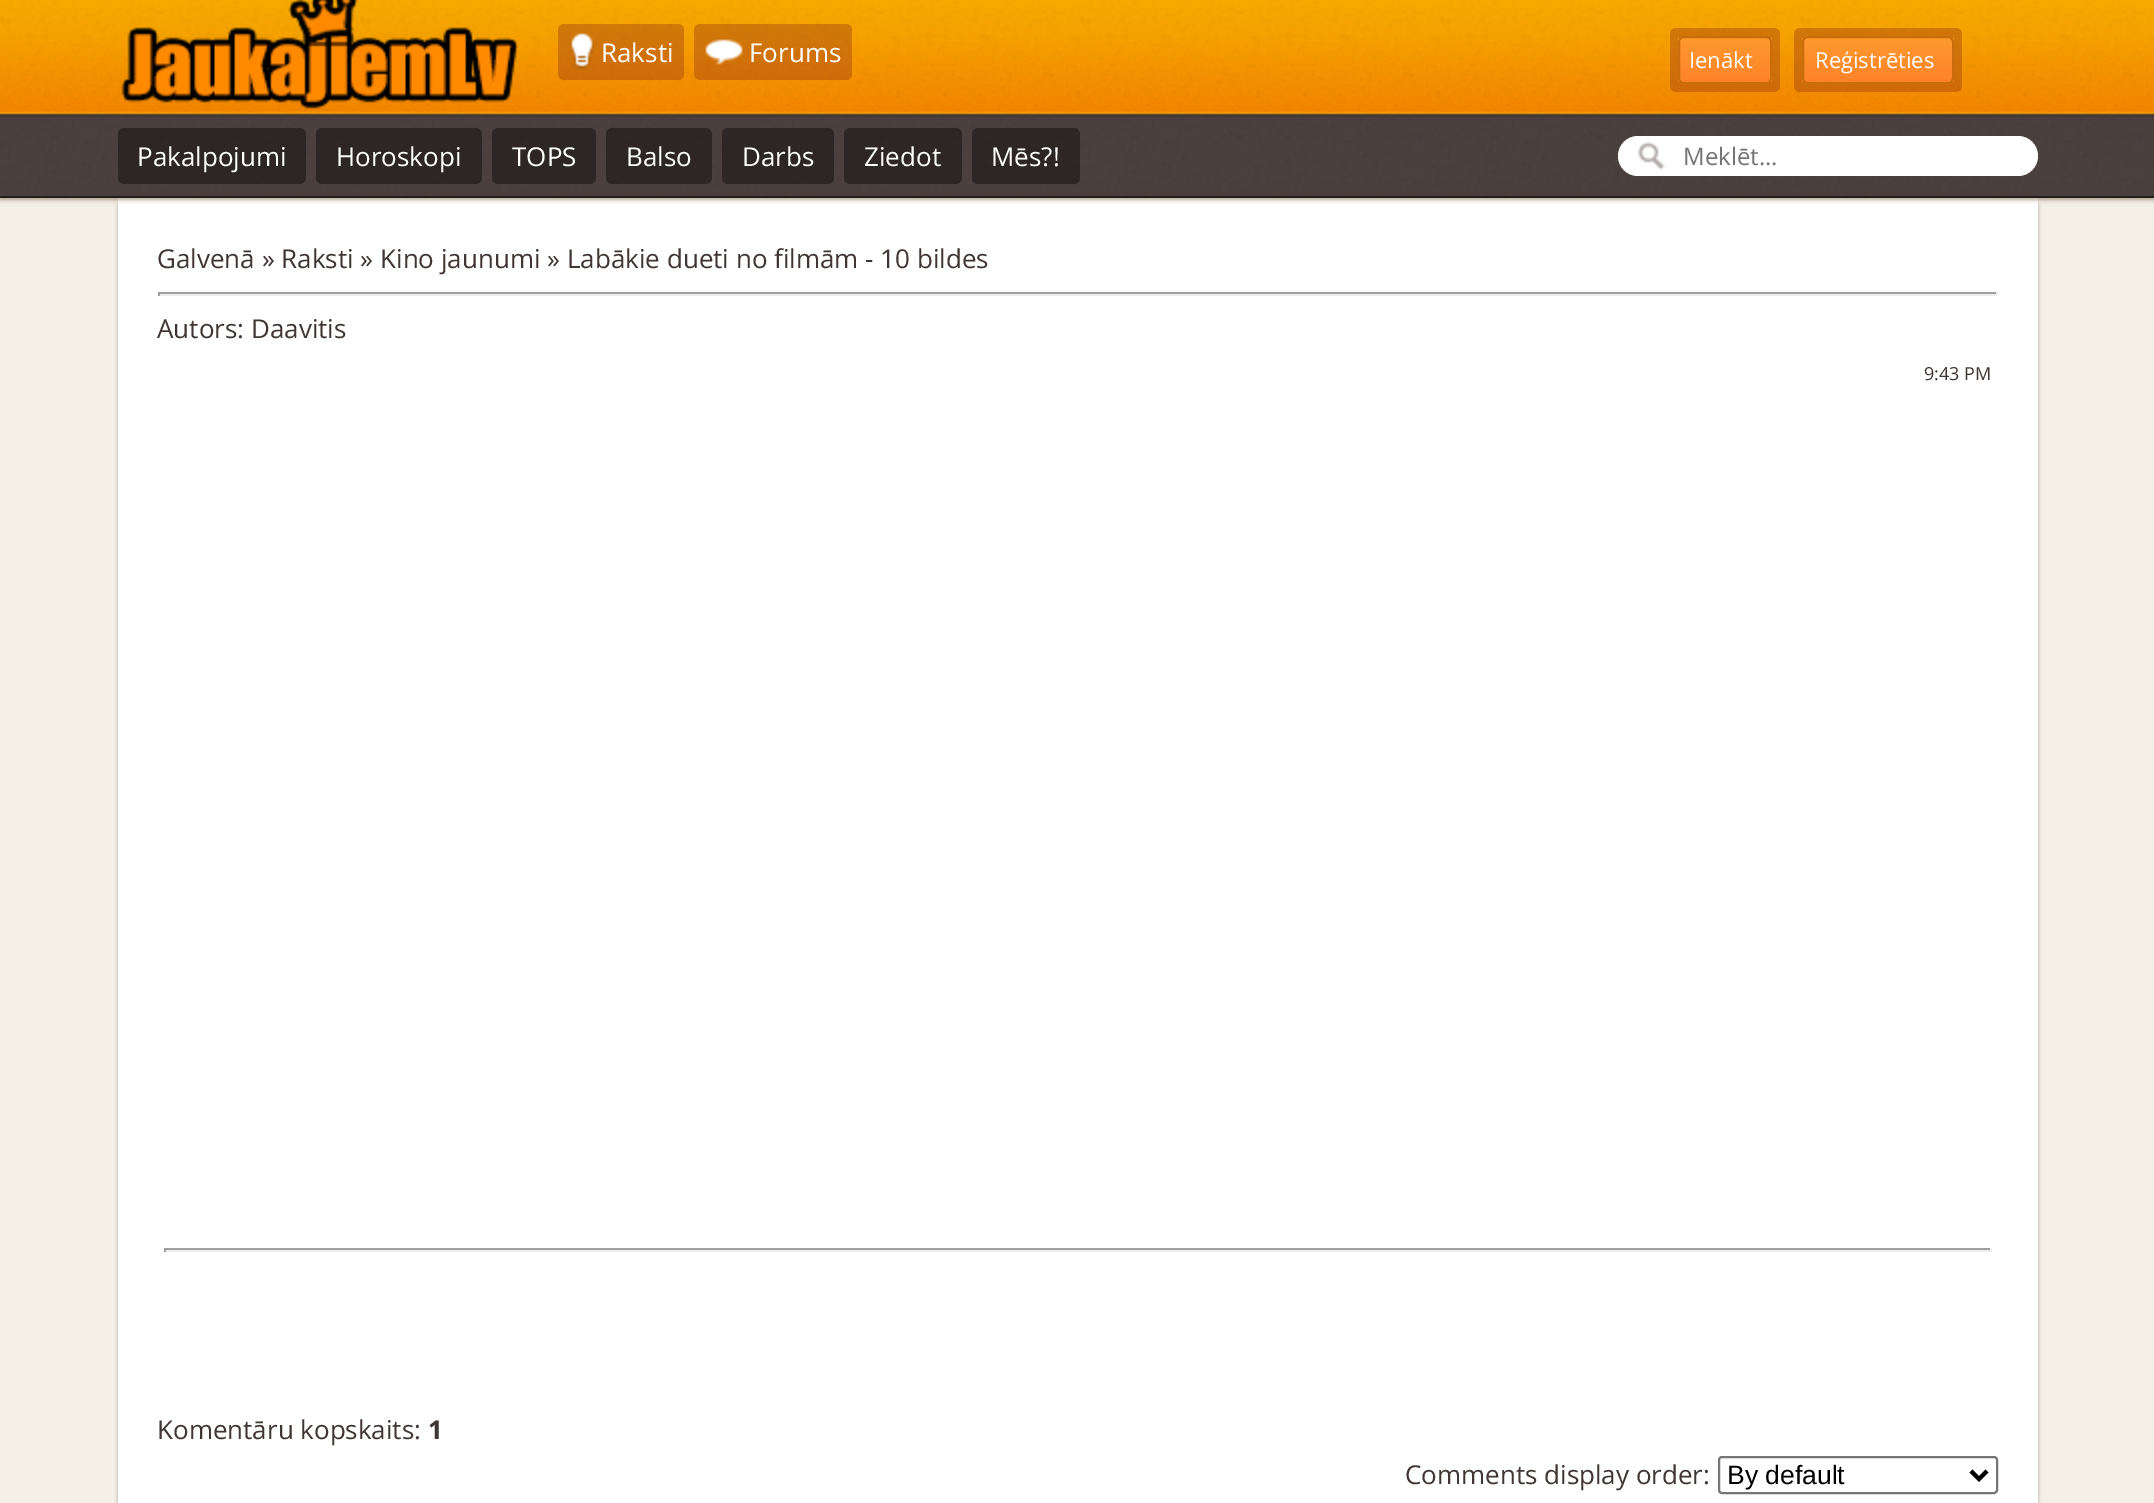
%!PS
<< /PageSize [2154 1503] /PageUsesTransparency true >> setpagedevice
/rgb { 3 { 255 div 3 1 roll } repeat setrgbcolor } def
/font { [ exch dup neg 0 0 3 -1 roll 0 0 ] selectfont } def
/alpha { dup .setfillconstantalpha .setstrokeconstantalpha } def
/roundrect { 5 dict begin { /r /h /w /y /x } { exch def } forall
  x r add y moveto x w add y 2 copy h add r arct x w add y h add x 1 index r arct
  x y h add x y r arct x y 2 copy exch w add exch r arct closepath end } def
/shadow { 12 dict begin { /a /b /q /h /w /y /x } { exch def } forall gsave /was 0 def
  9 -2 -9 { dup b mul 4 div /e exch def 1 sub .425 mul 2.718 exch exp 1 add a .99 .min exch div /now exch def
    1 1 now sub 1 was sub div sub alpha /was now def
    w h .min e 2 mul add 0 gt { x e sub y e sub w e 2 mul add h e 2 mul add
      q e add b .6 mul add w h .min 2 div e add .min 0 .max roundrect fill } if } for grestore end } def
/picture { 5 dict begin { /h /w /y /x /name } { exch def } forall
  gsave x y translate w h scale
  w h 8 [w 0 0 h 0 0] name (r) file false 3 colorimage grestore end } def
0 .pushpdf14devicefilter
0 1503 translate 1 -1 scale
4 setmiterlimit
244 239 231 rgb
0 0 2154 1503 rectfill
55 55 55 rgb
118 200 1920 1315 6 2 0.4 shadow
255 255 255 rgb
118 198 1920 1305 rectfill
100 76 38 rgb
0 -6 2154 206 0 2 0.5 shadow
(img/1.rgb) 0 0 2154 196 picture
35 29 28 rgb
0 196 2154 2 rectfill
(img/2.rgb) 121 0 398 109 picture
0.4 alpha
155 56 22 rgb
558 24 126 56 6 roundrect fill
1 alpha
(img/3.rgb) 570 33 24 37 picture
0.4 alpha
694 24 158 56 6 roundrect fill
1 alpha
(img/4.rgb) 705 39 38 26 picture
0.4 alpha
1670 28 110 64 6 roundrect fill
gsave
1678 36 94 48 6 roundrect clip newpath
1 alpha
gsave 1678 38 moveto 1772 38 lineto 1772 82 lineto 1678 82 lineto closepath clip newpath
<< /ShadingType 2 /ColorSpace /DeviceRGB /Coords [1680 38 1680 82] /Extend [true true] /Function << /FunctionType 2 /Domain [0 1] /C0 [0.996 0.604 0.18] /C1 [1 0.51 0.161] /N 1 >> >> shfill grestore
grestore
1 alpha
201 110 10 rgb
2 setlinewidth
1679 37 92 46 5 roundrect stroke
0.4 alpha
155 56 22 rgb
1794 28 168 64 6 roundrect fill
gsave
1802 36 152 48 6 roundrect clip newpath
1 alpha
gsave 1802 38 moveto 1954 38 lineto 1954 82 lineto 1802 82 lineto closepath clip newpath
<< /ShadingType 2 /ColorSpace /DeviceRGB /Coords [1804 38 1804 82] /Extend [true true] /Function << /FunctionType 2 /Domain [0 1] /C0 [0.996 0.604 0.18] /C1 [1 0.51 0.161] /N 1 >> >> shfill grestore
grestore
1 alpha
201 110 10 rgb
1803 37 150 46 5 roundrect stroke
0.4 alpha
0 0 0 rgb
118 128 188 56 6 roundrect fill
316 128 166 56 6 roundrect fill
492 128 104 56 6 roundrect fill
606 128 106 56 6 roundrect fill
722 128 112 56 6 roundrect fill
844 128 118 56 6 roundrect fill
972 128 108 56 6 roundrect fill
1 alpha
255 255 255 rgb
1618 136 420 40 20 roundrect fill
(img/5.rgb) 1637 141 28 30 picture
[
  [158 292 1840 2 159 159 159]
  [1996 292 2 4 238 238 238]
  [158 294 1840 2 238 238 238]
  [158 292 2 4 159 159 159]
  [164 1248 1828 2 159 159 159]
  [1990 1248 2 4 238 238 238]
  [164 1250 1828 2 238 238 238]
  [164 1248 2 4 159 159 159]
] { aload pop rgb rectfill } forall
118 118 118 rgb
1719 1457 278 36 3 roundrect stroke
0 0 0 rgb
4 setlinewidth
1971 1471 moveto 1979 1479 lineto 1987 1471 lineto stroke
/OpenSans-Regular 26 font
255 255 255 rgb
601 62 moveto (Raksti) show
749 62 moveto (Forums) show
/OpenSans-Regular 22 font
1689 68 moveto (Ienākt) show
1815 68 moveto (Reģistrēties) show
/OpenSans-Regular 26 font
[
  [(Pakalpojumi) 137 166]
  [(Horoskopi) 336 166]
  [(TOPS) 512 166]
  [(Balso) 626 166]
  [(Darbs) 742 166]
  [(Ziedot) 864 166]
  [(Mēs?!) 991 166]
] { aload pop moveto show } forall
/OpenSans-Regular 24 font
117 117 117 rgb
1683 165 moveto (Meklēt...) show
/OpenSans-Regular 26 font
63 53 52 rgb
157 268 moveto (Galvenā » Raksti » Kino jaunumi » Labākie dueti no filmām - 10 bildes) show
157 338 moveto (Autors: Daavitis) show
/OpenSans-Regular 18 font
1924 380 moveto (9:43 PM) show
/OpenSans-Regular 26 font
157 1439 moveto (Komentāru kopskaits:) show
/OpenSans-Bold 26 font
428 1439 moveto (1) show
/OpenSans-Regular 26 font
1405 1484 moveto (Comments display order:) show
/LiberationSans-Regular 26.5 font
0 0 0 rgb
1727 1484 moveto (By default) show
.poppdf14devicefilter showpage
